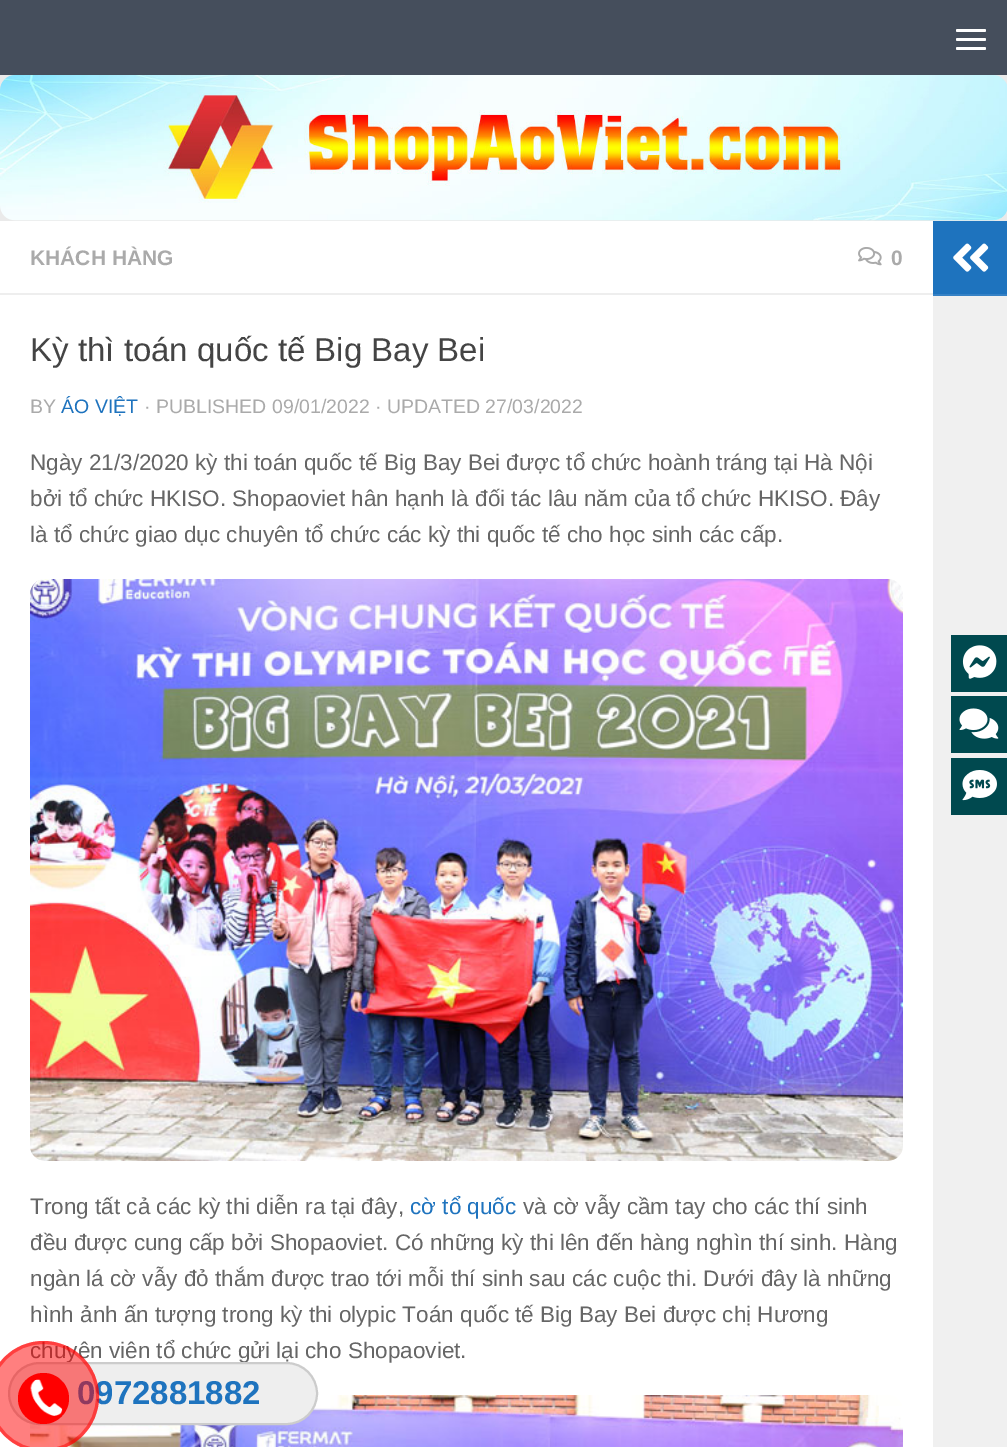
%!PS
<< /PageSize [1007 1447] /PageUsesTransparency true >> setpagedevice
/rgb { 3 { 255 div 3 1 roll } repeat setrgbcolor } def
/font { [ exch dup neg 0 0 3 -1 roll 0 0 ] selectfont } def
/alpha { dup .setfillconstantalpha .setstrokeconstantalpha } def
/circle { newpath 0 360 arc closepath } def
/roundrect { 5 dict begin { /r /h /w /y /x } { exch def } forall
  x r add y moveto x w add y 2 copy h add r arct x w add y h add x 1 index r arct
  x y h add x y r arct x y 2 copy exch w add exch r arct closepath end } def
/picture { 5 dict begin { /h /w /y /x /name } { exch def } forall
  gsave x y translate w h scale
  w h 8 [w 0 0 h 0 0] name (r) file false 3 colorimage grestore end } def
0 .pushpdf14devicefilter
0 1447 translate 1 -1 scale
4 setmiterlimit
234 234 234 rgb
0 0 1007 1447 rectfill
69 78 92 rgb
0 0 1007 75 rectfill
255 255 255 rgb
956 29 30 3 1.5 roundrect fill
956 38 30 3 1.5 roundrect fill
956 47 30 3 1.5 roundrect fill
(img/1.rgb) 0 75 1007 146 picture
0 221 933 1226 rectfill
238 238 238 rgb
0 293 933 2 rectfill
(img/2.rgb) 858 247 24 19 picture
(img/3.rgb) 30 579 873 582 picture
(img/4.rgb) 30 1395 873 52 picture
30 115 190 rgb
933 221 74 73 rectfill
53 129 197 rgb
933 294 74 2 rectfill
(img/5.rgb) 953 243 36 29 picture
240 240 240 rgb
933 296 74 1151 rectfill
0 73 79 rgb
951 635 56 57 rectfill
(img/6.rgb) 962 645 35 34 picture
951 696 56 57 rectfill
(img/7.rgb) 959 708 40 31 picture
951 758 56 57 rectfill
(img/8.rgb) 962 770 35 31 picture
/LiberationSans-Bold 21 font
170 170 170 rgb
30 265 moveto (KHÁCH HÀNG) show
891 265 moveto (0) show
/LiberationSans-Regular 33 font
68 68 68 rgb
30 361 moveto (Kỳ thì toán quốc tế Big Bay Bei) show
/LiberationSans-Regular 19.5 font
170 170 170 rgb
30 413 moveto (BY) show
30 115 190 rgb
61 413 moveto (ÁO VIỆT) show
170 170 170 rgb
144 413 moveto (· PUBLISHED 09/01/2022 · UPDATED 27/03/2022) show
/LiberationSans-Regular 22.5 font
102 102 102 rgb
[
  [(Ngày 21/3/2020 kỳ thi toán quốc tế Big Bay Bei được tổ chức hoành tráng tại Hà Nội) 30 470]
  [(bởi tổ chức HKISO. Shopaoviet hân hạnh là đối tác lâu năm của tổ chức HKISO. Đây) 30 506]
  [(là tổ chức giao dục chuyên tổ chức các kỳ thi quốc tế cho học sinh các cấp.) 30 542]
  [(Trong tất cả các kỳ thi diễn ra tại đây,) 30 1214]
] { aload pop moveto show } forall
30 115 190 rgb
410 1214 moveto (cờ tổ quốc) show
102 102 102 rgb
[
  [(và cờ vẫy cầm tay cho các thí sinh) 523 1214]
  [(đều được cung cấp bởi Shopaoviet. Có những kỳ thi lên đến hàng nghìn thí sinh. Hàng) 30 1250]
  [(ngàn lá cờ vẫy đỏ thắm được trao tới mỗi thí sinh sau các cuộc thi. Dưới đây là những) 30 1286]
  [(hình ảnh ấn tượng trong kỳ thi olypic Toán quốc tế Big Bay Bei được chị Hương) 30 1322]
  [(chuyên viên tổ chức gửi lại cho Shopaoviet.) 30 1358]
] { aload pop moveto show } forall
238 238 238 rgb
9 1363 308 61 30.5 roundrect gsave fill grestore
204 204 204 rgb
2 setlinewidth
stroke
/LiberationSans-Bold 33 font
30 115 190 rgb
77 1404 moveto (0972881882) show
0.5 alpha
255 0 0 rgb
43.5 1396.5 55.5 circle fill
3 setlinewidth
43.5 1396.5 54 circle stroke
1 alpha
43.5 1398.5 25.5 circle fill
(img/9.rgb) 30 1379 33 37 picture
.poppdf14devicefilter showpage
